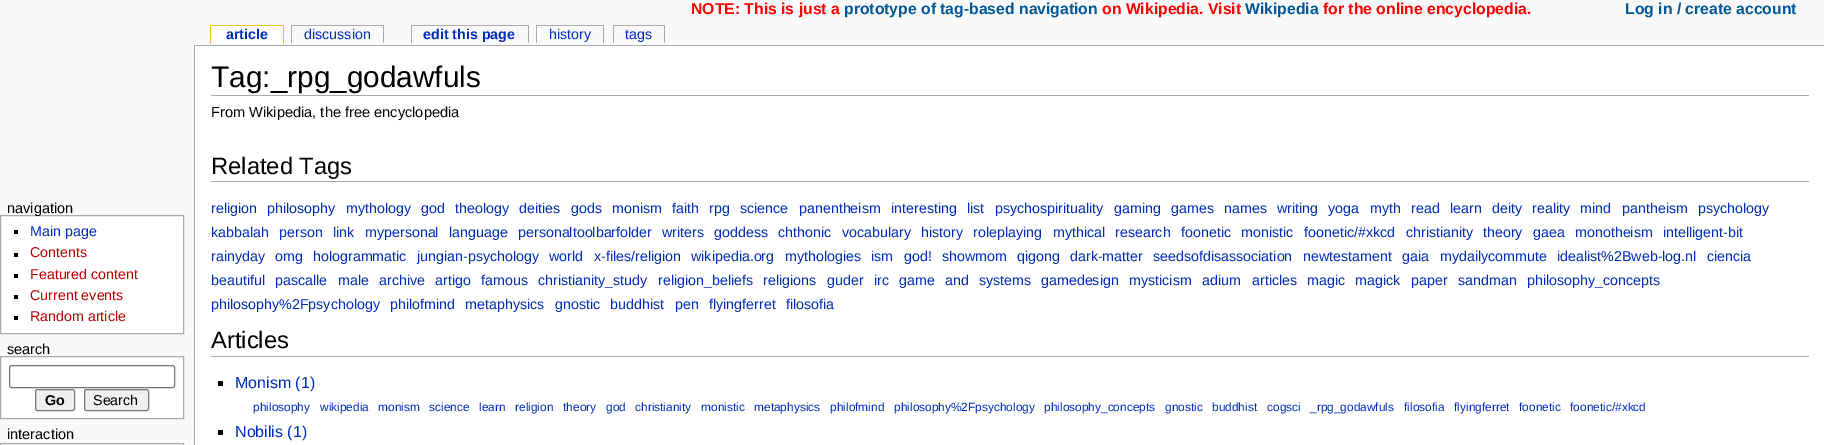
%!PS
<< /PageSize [1824 445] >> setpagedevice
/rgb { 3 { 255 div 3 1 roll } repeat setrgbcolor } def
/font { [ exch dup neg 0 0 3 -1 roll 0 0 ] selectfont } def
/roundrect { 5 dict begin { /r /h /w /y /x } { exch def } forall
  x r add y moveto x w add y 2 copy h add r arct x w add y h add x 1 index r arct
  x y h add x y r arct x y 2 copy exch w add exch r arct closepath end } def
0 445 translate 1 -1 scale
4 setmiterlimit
249 249 249 rgb
0 0 1824 445 rectfill
[
  [211 26 72 18 255 255 255]
  [210 25 74 1 250 189 35]
  [283 25 1 19 250 189 35]
  [210 25 1 19 250 189 35]
  [292 26 1 17 255 255 255]
  [291 25 93 1 170 170 170]
  [383 25 1 18 170 170 170]
  [291 25 1 18 170 170 170]
  [412 26 1 17 255 255 255]
  [411 25 118 1 170 170 170]
  [528 25 1 18 170 170 170]
  [411 25 1 18 170 170 170]
  [537 26 1 17 255 255 255]
  [536 25 68 1 170 170 170]
  [603 25 1 18 170 170 170]
  [536 25 1 18 170 170 170]
  [613 25 52 1 170 170 170]
  [664 25 1 18 170 170 170]
  [613 25 1 18 170 170 170]
] { aload pop rgb rectfill } forall
255 255 255 rgb
0.5 215.5 moveto 183.5 215.5 lineto 183.5 333.5 lineto 0.5 333.5 lineto closepath gsave fill grestore
170 170 170 rgb
stroke
[
  [14 230 4 4 0 0 0]
  [14 253 4 4 0 0 0]
  [14 274 4 4 0 0 0]
  [14 295 4 4 0 0 0]
  [14 316 4 4 0 0 0]
] { aload pop rgb rectfill } forall
255 255 255 rgb
0.5 356.5 moveto 183.5 356.5 lineto 183.5 418.5 lineto 0.5 418.5 lineto closepath gsave fill grestore
170 170 170 rgb
stroke
118 118 118 rgb
9.5 365.5 165 22 2 roundrect stroke
239 239 239 rgb
35.5 389.5 39 21 2 roundrect gsave fill grestore
118 118 118 rgb
stroke
239 239 239 rgb
84.5 389.5 64 21 2 roundrect gsave fill grestore
118 118 118 rgb
stroke
255 255 255 rgb
0.5 443.5 moveto 183.5 443.5 lineto 183.5 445.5 lineto 0.5 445.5 lineto closepath gsave fill grestore
170 170 170 rgb
stroke
[
  [195 46 1629 399 255 255 255]
  [194 45 1630 1 170 170 170]
  [194 45 1 400 170 170 170]
  [211 95 1598 1 170 170 170]
  [211 181 1598 1 170 170 170]
  [211 356 1598 1 170 170 170]
  [218 381 5 5 0 0 0]
  [218 430 5 5 0 0 0]
] { aload pop rgb rectfill } forall
/LiberationSans-Bold 15.75 font
255 0 0 rgb
691 14 moveto (NOTE: This is just a) show
0 88 150 rgb
844 14 moveto (prototype of tag-based navigation) show
255 0 0 rgb
1102 14 moveto (on Wikipedia. Visit) show
0 88 150 rgb
1245 14 moveto (Wikipedia) show
255 0 0 rgb
1323 14 moveto (for the online encyclopedia.) show
0 88 150 rgb
1625 14 moveto (Log in / create account) show
/LiberationSans-Bold 14.25 font
0 43 184 rgb
226 39 moveto (article) show
/LiberationSans-Regular 14.25 font
304 39 moveto (discussion) show
/LiberationSans-Bold 14.25 font
423 39 moveto (edit this page) show
/LiberationSans-Regular 14.25 font
549 39 moveto (history) show
625 39 moveto (tags) show
/LiberationSans-Regular 14.5 font
0 0 0 rgb
7 213 moveto (navigation) show
/LiberationSans-Regular 14.25 font
0 43 184 rgb
30 236 moveto (Main page) show
186 0 0 rgb
[
  [(Contents) 30 257]
  [(Featured content) 30 279]
  [(Current events) 30 300]
  [(Random article) 30 321]
] { aload pop moveto show } forall
/LiberationSans-Regular 14.5 font
0 0 0 rgb
7 354 moveto (search) show
/LiberationSans-Bold 14.25 font
45 405 moveto (Go) show
/LiberationSans-Regular 14.25 font
93 405 moveto (Search) show
/LiberationSans-Regular 14.5 font
7 439 moveto (interaction) show
/LiberationSans-Regular 29.75 font
211 87 moveto (Tag:_rpg_godawfuls) show
/LiberationSans-Regular 14.6 font
211 117 moveto (From Wikipedia, the free encyclopedia) show
/LiberationSans-Regular 23.75 font
211 174 moveto (Related Tags) show
/LiberationSans-Regular 14.25 font
0 43 184 rgb
[
  [(religion) 211 213]
  [(philosophy) 267 213]
  [(mythology) 346 213]
  [(god) 421 213]
  [(theology) 455 213]
  [(deities) 519 213]
  [(gods) 571 213]
  [(monism) 612 213]
  [(faith) 672 213]
  [(rpg) 709 213]
  [(science) 740 213]
  [(panentheism) 799 213]
  [(interesting) 891 213]
  [(list) 967 213]
  [(psychospirituality) 995 213]
  [(gaming) 1114 213]
  [(games) 1171 213]
  [(names) 1224 213]
  [(writing) 1277 213]
  [(yoga) 1328 213]
  [(myth) 1370 213]
  [(read) 1411 213]
  [(learn) 1450 213]
  [(deity) 1492 213]
  [(reality) 1532 213]
  [(mind) 1580 213]
  [(pantheism) 1622 213]
  [(psychology) 1698 213]
  [(kabbalah) 211 237]
  [(person) 279 237]
  [(link) 333 237]
  [(mypersonal) 365 237]
  [(language) 449 237]
  [(personaltoolbarfolder) 518 237]
  [(writers) 662 237]
  [(goddess) 714 237]
  [(chthonic) 778 237]
  [(vocabulary) 842 237]
  [(history) 921 237]
  [(roleplaying) 973 237]
  [(mythical) 1053 237]
  [(research) 1115 237]
  [(foonetic) 1181 237]
  [(monistic) 1241 237]
  [(foonetic/#xkcd) 1304 237]
  [(christianity) 1406 237]
  [(theory) 1483 237]
  [(gaea) 1533 237]
  [(monotheism) 1575 237]
  [(intelligent-bit) 1663 237]
  [(rainyday) 211 261]
  [(omg) 275 261]
  [(hologrammatic) 313 261]
  [(jungian-psychology) 417 261]
  [(world) 549 261]
  [(x-files/religion) 594 261]
  [(wikipedia.org) 691 261]
  [(mythologies) 785 261]
  [(ism) 871 261]
  [(god!) 904 261]
  [(showmom) 942 261]
  [(qigong) 1017 261]
  [(dark-matter) 1070 261]
  [(seedsofdisassociation) 1153 261]
  [(newtestament) 1303 261]
  [(gaia) 1402 261]
  [(mydailycommute) 1440 261]
  [(idealist%2Bweb-log.nl) 1557 261]
  [(ciencia) 1707 261]
  [(beautiful) 211 285]
  [(pascalle) 275 285]
  [(male) 338 285]
  [(archive) 379 285]
  [(artigo) 435 285]
  [(famous) 481 285]
  [(christianity_study) 538 285]
  [(religion_beliefs) 658 285]
  [(religions) 763 285]
  [(guder) 827 285]
  [(irc) 874 285]
  [(game) 899 285]
  [(and) 945 285]
  [(systems) 979 285]
  [(gamedesign) 1041 285]
  [(mysticism) 1129 285]
  [(adium) 1202 285]
  [(articles) 1252 285]
  [(magic) 1307 285]
  [(magick) 1355 285]
  [(paper) 1411 285]
  [(sandman) 1458 285]
  [(philosophy_concepts) 1527 285]
  [(philosophy%2Fpsychology) 211 309]
  [(philofmind) 390 309]
  [(metaphysics) 465 309]
  [(gnostic) 555 309]
  [(buddhist) 610 309]
  [(pen) 675 309]
  [(flyingferret) 709 309]
  [(filosofia) 786 309]
] { aload pop moveto show } forall
/LiberationSans-Regular 23.75 font
0 0 0 rgb
211 348 moveto (Articles) show
/LiberationSans-Regular 16 font
0 43 184 rgb
235 388 moveto (Monism \(1\)) show
/LiberationSans-Regular 11.9 font
[
  [(philosophy) 253 411]
  [(wikipedia) 320 411]
  [(monism) 378 411]
  [(science) 429 411]
  [(learn) 479 411]
  [(religion) 515 411]
  [(theory) 563 411]
  [(god) 606 411]
  [(christianity) 635 411]
  [(monistic) 701 411]
  [(metaphysics) 754 411]
  [(philofmind) 830 411]
  [(philosophy%2Fpsychology) 894 411]
  [(philosophy_concepts) 1044 411]
  [(gnostic) 1165 411]
  [(buddhist) 1212 411]
  [(cogsci) 1267 411]
  [(_rpg_godawfuls) 1310 411]
  [(filosofia) 1404 411]
  [(flyingferret) 1454 411]
  [(foonetic) 1519 411]
  [(foonetic/#xkcd) 1570 411]
] { aload pop moveto show } forall
/LiberationSans-Regular 16 font
235 437 moveto (Nobilis \(1\)) show
showpage
